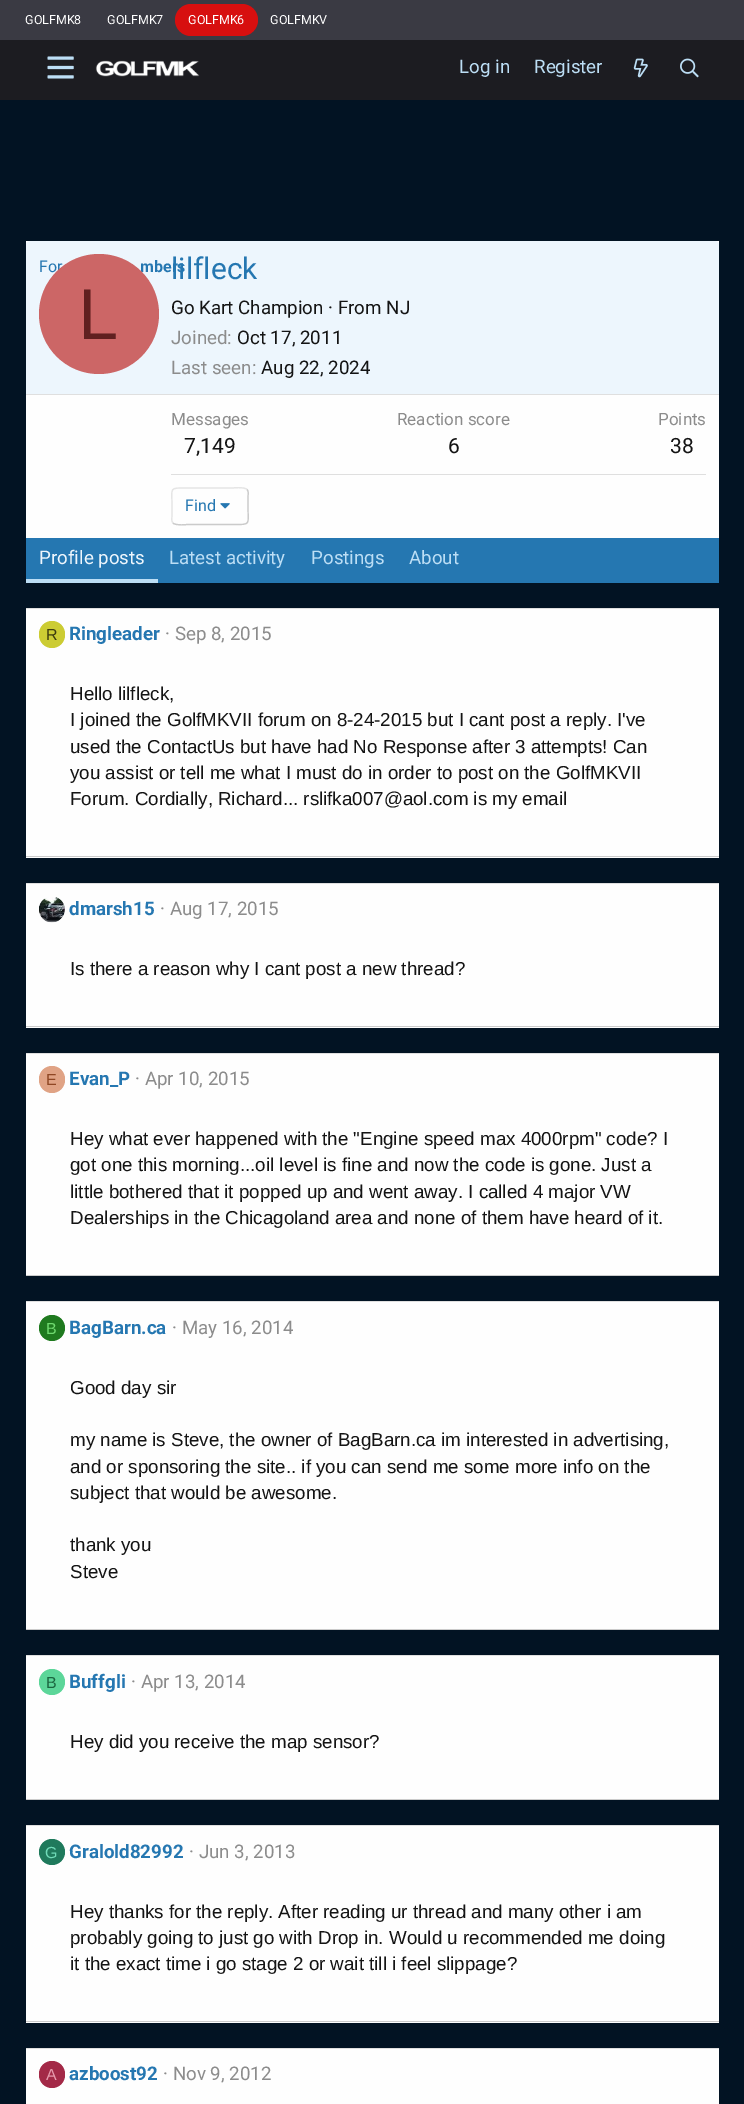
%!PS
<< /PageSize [744 2104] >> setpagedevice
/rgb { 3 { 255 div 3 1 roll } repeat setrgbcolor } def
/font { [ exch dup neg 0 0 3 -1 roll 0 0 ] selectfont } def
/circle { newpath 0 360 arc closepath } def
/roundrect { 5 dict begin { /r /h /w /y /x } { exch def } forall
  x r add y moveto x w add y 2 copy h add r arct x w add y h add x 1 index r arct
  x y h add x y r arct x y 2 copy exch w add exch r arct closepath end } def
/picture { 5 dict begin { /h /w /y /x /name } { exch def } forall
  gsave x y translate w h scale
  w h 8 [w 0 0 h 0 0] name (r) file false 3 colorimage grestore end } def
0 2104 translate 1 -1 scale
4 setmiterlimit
2 19 35 rgb
0 0 744 2104 rectfill
58 58 67 rgb
0 0 744 40 rectfill
215 15 15 rgb
175 4 83 32 16 roundrect fill
28 28 33 rgb
0 40 744 60 rectfill
(img/1.rgb) 47 56 27 23 picture
(img/2.rgb) 95 60 105 17 picture
(img/3.rgb) 633 58 15 20 picture
(img/4.rgb) 680 58 19 20 picture
254 254 254 rgb
26 241 693 297 rectfill
237 246 253 rgb
30 241 moveto 715 241 lineto 717 241 719 243 719 245 curveto 719 395 lineto 26 395 lineto 26 245 lineto 26 243 28 241 30 241 curveto closepath fill
223 223 223 rgb
26 394 693 1 rectfill
171 474 535 1 rectfill
203 203 203 rgb
1.2 setlinewidth
247 489.5 moveto 249 491.5 248 494.5 248 497 curveto 248 506 lineto 248 525.5 251.5 524.5 232.5 524.5 curveto 187.5 524.5 lineto 187 524.5 176 526 173 523 curveto stroke
229 229 229 rgb
173 523 moveto 171 521 172 518 172 515.5 curveto 172 506 lineto 172 487 168.5 488 187.5 488 curveto 232.5 488 lineto 233 488 244 486.5 247 489.5 curveto stroke
(img/5.rgb) 220 503 10 6 picture
[
  [26 538 693 45 37 119 177]
  [26 579 132 4 188 222 245]
  [26 609 693 249 254 254 254]
  [26 608 693 1 223 223 223]
  [26 856 693 1 203 203 203]
] { aload pop rgb rectfill } forall
204 204 51 rgb
39 621 26 27 13 roundrect fill
[
  [26 884 693 144 254 254 254]
  [26 883 693 1 223 223 223]
  [26 1026 693 1 203 203 203]
] { aload pop rgb rectfill } forall
(img/6.rgb) 39 897 26 26 picture
[
  [26 1054 693 221 254 254 254]
  [26 1053 693 1 223 223 223]
  [26 1275 693 1 203 203 203]
] { aload pop rgb rectfill } forall
224 163 133 rgb
39 1066 26 27 13 roundrect fill
[
  [26 1302 693 327 254 254 254]
  [26 1301 693 1 223 223 223]
  [26 1629 693 1 203 203 203]
] { aload pop rgb rectfill } forall
31 122 31 rgb
52 1328 13 circle fill
[
  [26 1656 693 143 254 254 254]
  [26 1655 693 1 223 223 223]
  [26 1799 693 1 203 203 203]
] { aload pop rgb rectfill } forall
92 214 153 rgb
52 1682 13 circle fill
[
  [26 1826 693 197 254 254 254]
  [26 1825 693 1 223 223 223]
  [26 2021 693 1 203 203 203]
] { aload pop rgb rectfill } forall
31 122 92 rgb
52 1852 13 circle fill
254 254 254 rgb
26 2049 693 55 rectfill
223 223 223 rgb
26 2048 693 1 rectfill
163 41 71 rgb
39 2061 26 27 13 roundrect fill
/Roboto-Regular 12.5 font
255 255 255 rgb
[
  [(GOLFMK8) 25 24]
  [(GOLFMK7) 107 24]
  [(GOLFMK6) 188 24]
  [(GOLFMKV) 270 24]
] { aload pop moveto show } forall
/Roboto-Regular 18.75 font
188 222 245 rgb
459 73 moveto (Log in) show
534 73 moveto (Register) show
20 20 20 rgb
171 314 moveto (Go Kart Champion · From NJ) show
140 140 140 rgb
171 344 moveto (Joined:) show
20 20 20 rgb
237 344 moveto (Oct 17, 2011) show
140 140 140 rgb
171 374 moveto (Last seen:) show
20 20 20 rgb
261 374 moveto (Aug 22, 2024) show
/Roboto-Regular 17 font
140 140 140 rgb
171 425 moveto (Messages) show
/Roboto-Regular 21 font
20 20 20 rgb
184 453 moveto (7,149) show
/Roboto-Regular 17 font
140 140 140 rgb
397 425 moveto (Reaction score) show
/Roboto-Regular 21 font
20 20 20 rgb
448 453 moveto (6) show
/Roboto-Regular 17 font
140 140 140 rgb
658 425 moveto (Points) show
/Roboto-Regular 21 font
20 20 20 rgb
670 453 moveto (38) show
/Roboto-Regular 16 font
37 119 177 rgb
185 511 moveto (Find) show
/Roboto-Regular 18.75 font
237 246 253 rgb
39 564 moveto (Profile posts) show
188 222 245 rgb
[
  [(Latest activity) 169 564]
  [(Postings) 311 564]
  [(About) 409 564]
] { aload pop moveto show } forall
/LiberationSans-Regular 16 font
61 61 15 rgb
46 640 moveto (R) show
/Roboto-Bold 18.75 font
37 119 177 rgb
69 640 moveto (Ringleader) show
/Roboto-Regular 18.75 font
140 140 140 rgb
165 640 moveto (· Sep 8, 2015) show
/LiberationSans-Regular 18.75 font
20 20 20 rgb
[
  [(Hello lilfleck,) 70 700]
  [(I joined the GolfMKVII forum on 8-24-2015 but I cant post a reply. I've) 70 726]
  [(used the ContactUs but have had No Response after 3 attempts! Can) 70 753]
  [(you assist or tell me what I must do in order to post on the GolfMKVII) 70 779]
  [(Forum. Cordially, Richard... rslifka007@aol.com is my email) 70 805]
] { aload pop moveto show } forall
/Roboto-Bold 18.75 font
37 119 177 rgb
69 915 moveto (dmarsh15) show
/Roboto-Regular 18.75 font
140 140 140 rgb
160 915 moveto (· Aug 17, 2015) show
/LiberationSans-Regular 18.75 font
20 20 20 rgb
70 975 moveto (Is there a reason why I cant post a new thread?) show
/LiberationSans-Regular 16 font
143 71 36 rgb
46 1085 moveto (E) show
/Roboto-Bold 18.75 font
37 119 177 rgb
69 1085 moveto (Evan_P) show
/Roboto-Regular 18.75 font
140 140 140 rgb
135 1085 moveto (· Apr 10, 2015) show
/LiberationSans-Regular 18.75 font
20 20 20 rgb
[
  [(Hey what ever happened with the "Engine speed max 4000rpm" code? I) 70 1145]
  [(got one this morning...oil level is fine and now the code is gone. Just a) 70 1171]
  [(little bothered that it popped up and went away. I called 4 major VW) 70 1198]
  [(Dealerships in the Chicagoland area and none of them have heard of it.) 70 1224]
] { aload pop moveto show } forall
/LiberationSans-Regular 16 font
112 219 112 rgb
46 1334 moveto (B) show
/Roboto-Bold 18.75 font
37 119 177 rgb
69 1334 moveto (BagBarn.ca) show
/Roboto-Regular 18.75 font
140 140 140 rgb
172 1334 moveto (· May 16, 2014) show
/LiberationSans-Regular 18.75 font
20 20 20 rgb
[
  [(Good day sir) 70 1394]
  [(my name is Steve, the owner of BagBarn.ca im interested in advertising,) 70 1446]
  [(and or sponsoring the site.. if you can send me some more info on the) 70 1473]
  [(subject that would be awesome.) 70 1499]
  [(thank you) 70 1551]
  [(Steve) 70 1578]
] { aload pop moveto show } forall
/LiberationSans-Regular 16 font
26 102 64 rgb
46 1688 moveto (B) show
/Roboto-Bold 18.75 font
37 119 177 rgb
69 1688 moveto (Buffgli) show
/Roboto-Regular 18.75 font
140 140 140 rgb
131 1688 moveto (· Apr 13, 2014) show
/LiberationSans-Regular 18.75 font
20 20 20 rgb
70 1748 moveto (Hey did you receive the map sensor?) show
/LiberationSans-Regular 16 font
112 219 184 rgb
45 1858 moveto (G) show
/Roboto-Bold 18.75 font
37 119 177 rgb
69 1858 moveto (Gralold82992) show
/Roboto-Regular 18.75 font
140 140 140 rgb
189 1858 moveto (· Jun 3, 2013) show
/LiberationSans-Regular 18.75 font
20 20 20 rgb
[
  [(Hey thanks for the reply. After reading ur thread and many other i am) 70 1918]
  [(probably going to just go with Drop in. Would u recommended me doing) 70 1944]
  [(it the exact time i go stage 2 or wait till i feel slippage?) 70 1970]
] { aload pop moveto show } forall
/LiberationSans-Regular 16 font
230 153 172 rgb
46 2080 moveto (A) show
/Roboto-Bold 18.75 font
37 119 177 rgb
69 2080 moveto (azboost92) show
/Roboto-Regular 18.75 font
140 140 140 rgb
163 2080 moveto (· Nov 9, 2012) show
/Roboto-Regular 16 font
37 119 177 rgb
39 272 moveto (For) show
/Roboto-Bold 16 font
140 272 moveto (mbers) show
204 102 102 rgb
99 314 60 circle fill
/LiberationSans-Regular 72 font
96 32 32 rgb
78 339 moveto (L) show
/Roboto-Regular 30 font
37 119 177 rgb
171 279 moveto (lilfleck) show
showpage
